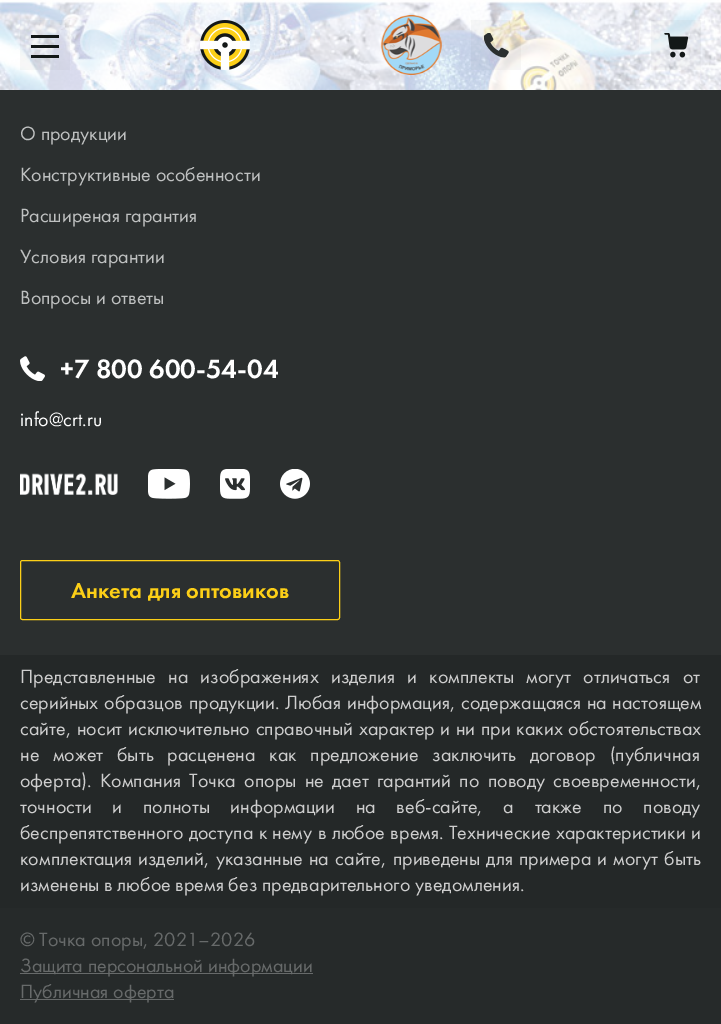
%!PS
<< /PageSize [721 1024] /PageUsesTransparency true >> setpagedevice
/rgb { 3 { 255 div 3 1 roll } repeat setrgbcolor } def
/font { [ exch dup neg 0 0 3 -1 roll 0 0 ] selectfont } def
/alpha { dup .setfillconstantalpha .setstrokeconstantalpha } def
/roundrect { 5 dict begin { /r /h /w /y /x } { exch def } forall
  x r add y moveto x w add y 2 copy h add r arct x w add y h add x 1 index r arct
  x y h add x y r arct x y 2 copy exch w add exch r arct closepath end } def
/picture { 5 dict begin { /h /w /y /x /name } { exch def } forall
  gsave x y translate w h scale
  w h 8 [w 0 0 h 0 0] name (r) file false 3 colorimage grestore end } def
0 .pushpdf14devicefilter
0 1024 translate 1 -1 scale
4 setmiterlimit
43 47 47 rgb
0 0 721 1024 rectfill
(img/1.rgb) 0 0 721 90 picture
0.05 alpha
[
  [20 20 50 50 101 104 104]
] { aload pop rgb rectfill } forall
1 alpha
[
  [31 45 28 3 19 24 24]
  [31 35 28 3 19 24 24]
  [31 55 28 3 19 24 24]
] { aload pop rgb rectfill } forall
(img/2.rgb) 200 20 50 50 picture
(img/3.rgb) 380 15 62 60 picture
0.05 alpha
101 104 104 rgb
471 20 50 50 rectfill
1 alpha
(img/4.rgb) 484 33 25 25 picture
0.05 alpha
651 20 50 50 rectfill
1 alpha
(img/5.rgb) 664 33 25 25 picture
(img/6.rgb) 20 356 25 25 picture
(img/7.rgb) 20 473 98 22 picture
(img/8.rgb) 148 469 42 30 picture
(img/9.rgb) 220 469 30 30 picture
(img/10.rgb) 280 469 30 30 picture
252 207 23 rgb
20.5 560.5 319 59 2 roundrect stroke
[
  [0 655 721 253 36 40 40]
  [0 908 721 116 38 42 42]
  [20 973 293 1 103 106 106]
  [20 999 154 1 103 106 106]
] { aload pop rgb rectfill } forall
/FuturaPT-Regular 20 font
191 193 193 rgb
[
  [(О продукции) 20 140]
  [(Конструктивные особенности) 20 181]
  [(Расширеная гарантия) 20 222]
  [(Условия гарантии) 20 263]
  [(Вопросы и ответы) 20 304]
] { aload pop moveto show } forall
/FuturaPT-Medium 27.5 font
255 255 255 rgb
60 378 moveto (+7 800 600-54-04) show
/FuturaPT-Regular 20 font
20 426 moveto (info@crt.ru) show
/FuturaPT-Medium 22.5 font
252 207 23 rgb
71 598 moveto (Анкета для оптовиков) show
/FuturaPT-Regular 20 font
206 206 206 rgb
20 683 moveto 7.5 0 32 (Представленные на изображениях изделия и комплекты могут отличаться от) widthshow
20 709 moveto 1 0 32 (серийных образцов продукции. Любая информация, содержащаяся на настоящем) widthshow
20 735 moveto 1 0 32 (сайте, носит исключительно справочный характер и ни при каких обстоятельствах) widthshow
20 761 moveto 9 0 32 (не может быть расценена как предложение заключить договор \(публичная) widthshow
20 787 moveto 3.75 0 32 (оферта\). Компания Точка опоры не дает гарантий по поводу своевременности,) widthshow
20 813 moveto 16 0 32 (точности и полноты информации на веб-сайте, а также по поводу) widthshow
20 839 moveto 0.75 0 32 (беспрепятственного доступа к нему в любое время. Технические характеристики и) widthshow
20 865 moveto 1.6 0 32 (комплектация изделий, указанные на сайте, приведены для примера и могут быть) widthshow
20 891 moveto (изменены в любое время без предварительного уведомления.) show
103 106 106 rgb
[
  [(© Точка опоры, 2021–2026) 20 946]
  [(Защита персональной информации) 20 972]
  [(Публичная оферта) 20 998]
] { aload pop moveto show } forall
.poppdf14devicefilter showpage
